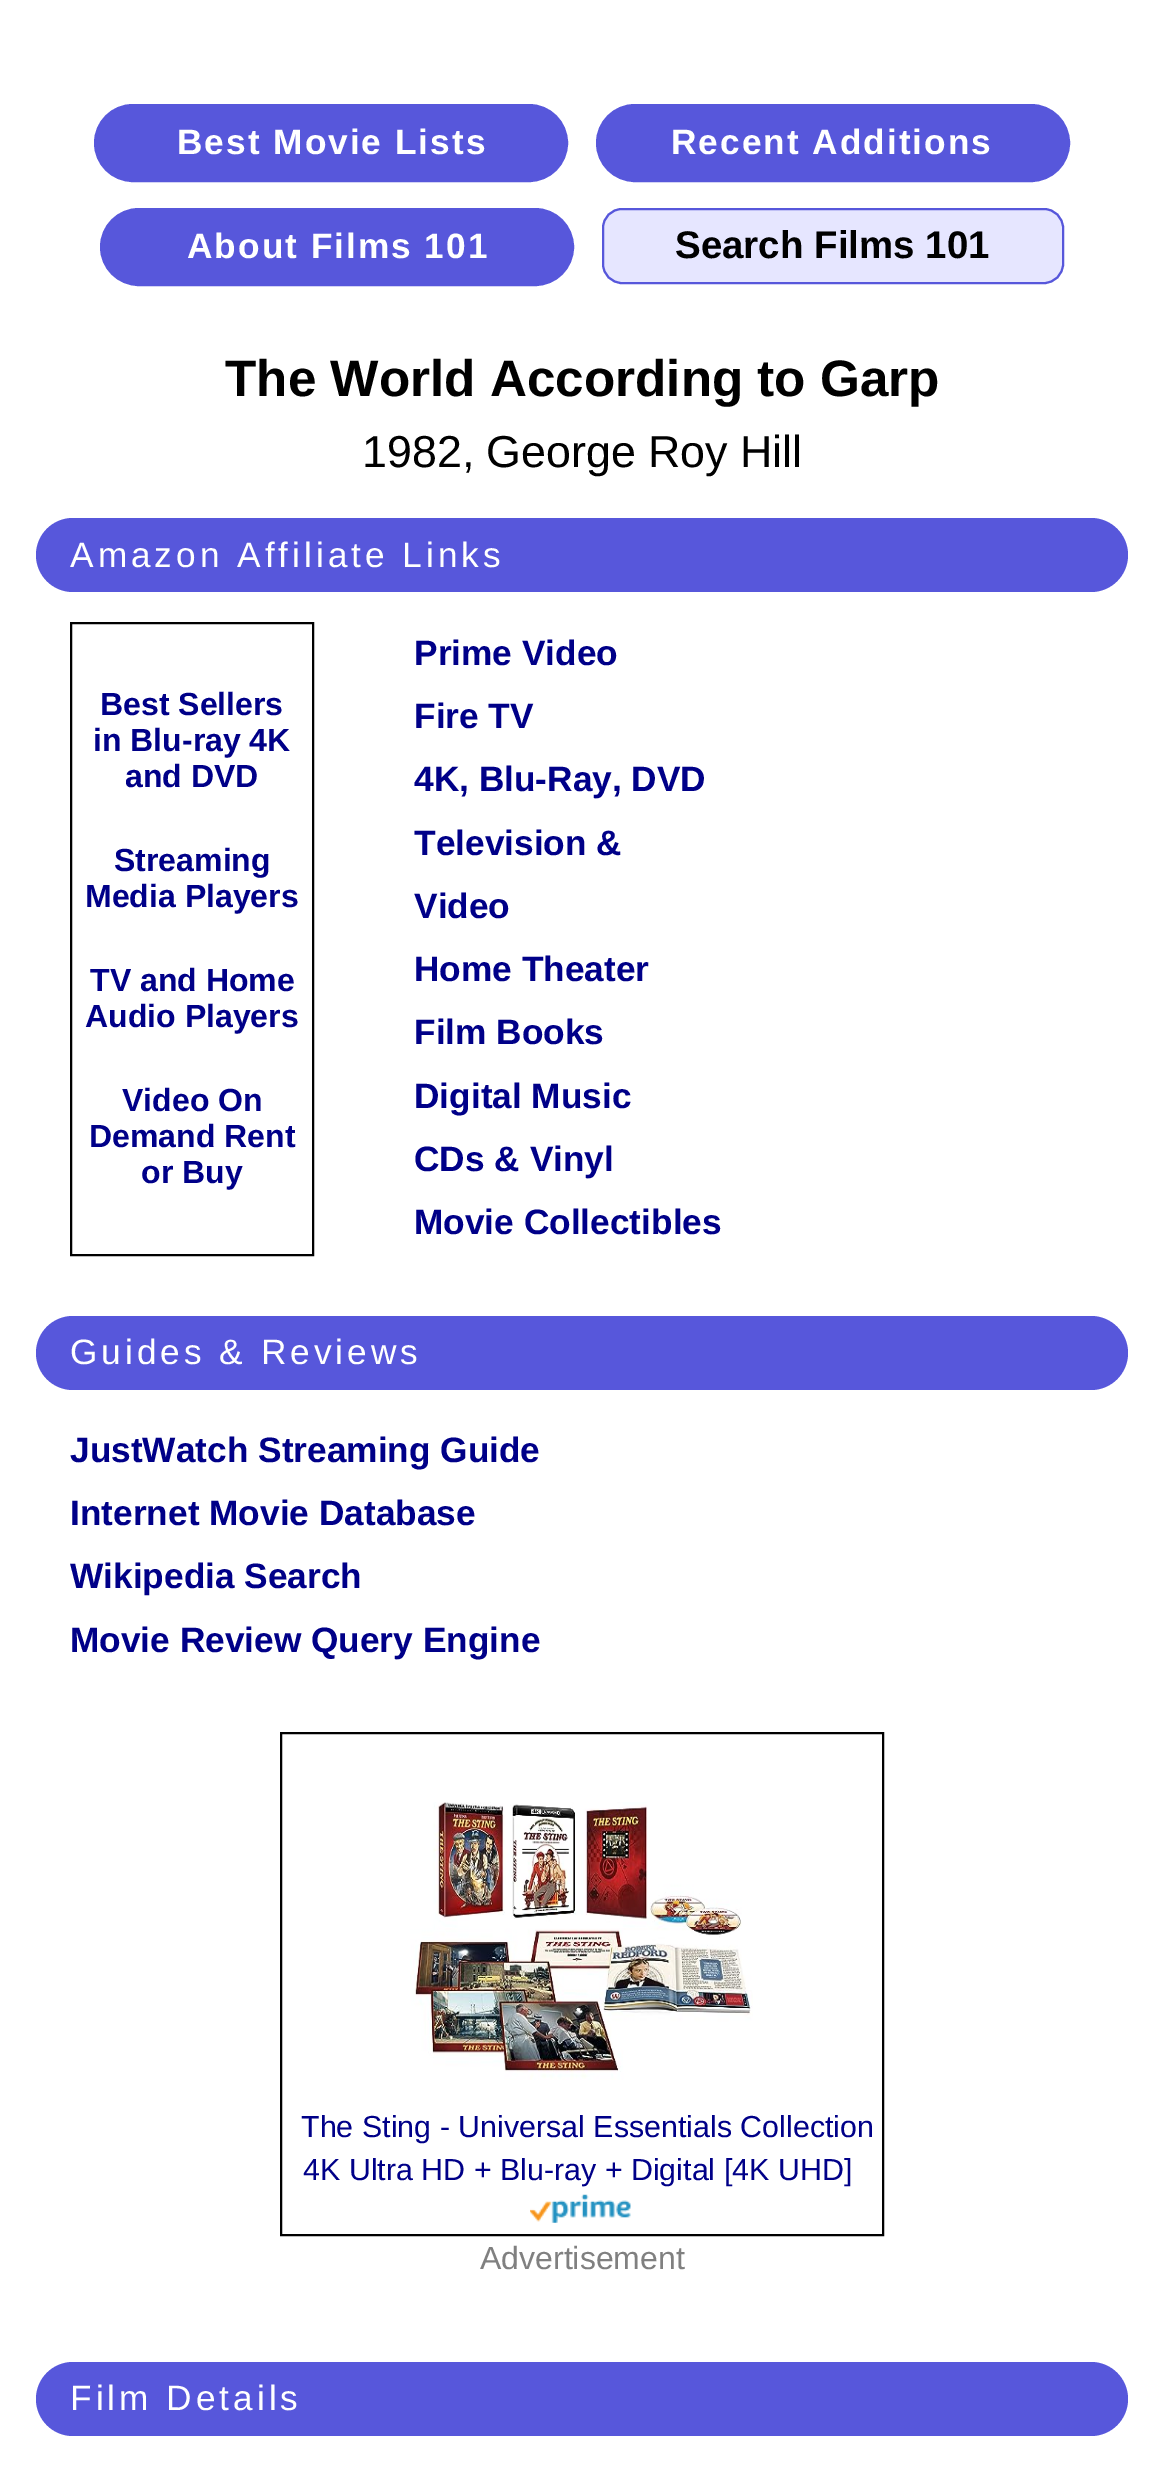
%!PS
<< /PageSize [1163 2487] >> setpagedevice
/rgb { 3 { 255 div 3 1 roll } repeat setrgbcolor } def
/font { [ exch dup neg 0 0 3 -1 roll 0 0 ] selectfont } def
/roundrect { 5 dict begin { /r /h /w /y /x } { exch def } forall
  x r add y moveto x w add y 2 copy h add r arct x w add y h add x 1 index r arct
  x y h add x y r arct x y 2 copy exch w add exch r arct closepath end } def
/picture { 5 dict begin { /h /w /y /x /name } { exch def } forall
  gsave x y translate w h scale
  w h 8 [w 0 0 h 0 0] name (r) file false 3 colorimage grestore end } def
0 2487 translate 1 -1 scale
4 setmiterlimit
255 255 255 rgb
0 0 1163 2487 rectfill
87 87 219 rgb
95 105 472 76 38 roundrect gsave fill grestore
2 setlinewidth
stroke
597 105 472 76 38 roundrect gsave fill grestore
stroke
101 209 472 76 38 roundrect gsave fill grestore
stroke
230 230 255 rgb
603 209 460 74 19 roundrect gsave fill grestore
87 87 219 rgb
stroke
36 518 1092 74 37 roundrect fill
0 0 0 rgb
71 623 242 632 rectstroke
87 87 219 rgb
36 1316 1092 74 37 roundrect fill
0 0 0 rgb
281 1733 602 502 rectstroke
(img/1.rgb) 410 1802 343 278 picture
(img/2.rgb) 530 2194 101 29 picture
87 87 219 rgb
36 2362 1092 74 37 roundrect fill
/LiberationSans-Bold 35.25 font
255 255 255 rgb
177 154 moveto 2 0 (Best Movie Lists) ashow
671 154 moveto 2 0 (Recent Additions) ashow
187 258 moveto 2 0 (About Films 101) ashow
/LiberationSans-Bold 38.5 font
0 0 0 rgb
675 258 moveto (Search Films 101) show
/LiberationSans-Bold 51.25 font
225 396 moveto (The World According to Garp) show
/LiberationSans-Regular 44.75 font
362 467 moveto (1982, George Roy Hill) show
/LiberationSans-Regular 35.25 font
255 255 255 rgb
70 567 moveto 4 0 (Amazon Affiliate Links) ashow
/LiberationSans-Bold 32 font
0 0 136 rgb
[
  [(Best Sellers) 100 715]
  [(in Blu-ray 4K) 93 751]
  [(and DVD) 125 787]
  [(Streaming) 114 871]
  [(Media Players) 85 907]
  [(TV and Home) 90 991]
  [(Audio Players) 85 1027]
  [(Video On) 122 1111]
  [(Demand Rent) 89 1147]
  [(or Buy) 141 1183]
] { aload pop moveto show } forall
/LiberationSans-Bold 35.25 font
[
  [(Prime Video) 414 665]
  [(Fire TV) 414 728]
  [(4K, Blu-Ray, DVD) 414 791]
  [(Television &) 414 855]
  [(Video) 414 918]
  [(Home Theater) 414 981]
  [(Film Books) 414 1044]
  [(Digital Music) 414 1108]
  [(CDs & Vinyl) 414 1171]
  [(Movie Collectibles) 414 1234]
] { aload pop moveto show } forall
/LiberationSans-Regular 35.25 font
255 255 255 rgb
70 1364 moveto 4 0 (Guides & Reviews) ashow
/LiberationSans-Bold 35.25 font
0 0 136 rgb
[
  [(JustWatch Streaming Guide) 70 1462]
  [(Internet Movie Database) 70 1525]
  [(Wikipedia Search) 70 1588]
  [(Movie Review Query Engine) 70 1652]
] { aload pop moveto show } forall
/LiberationSans-Regular 30.4 font
301 2137 moveto (The Sting - Universal Essentials Collection) show
303 2180 moveto (4K Ultra HD + Blu-ray + Digital [4K UHD]) show
/LiberationSans-Regular 32 font
128 128 128 rgb
480 2269 moveto (Advertisement) show
/LiberationSans-Regular 35.25 font
255 255 255 rgb
70 2410 moveto 4 0 (Film Details) ashow
showpage
